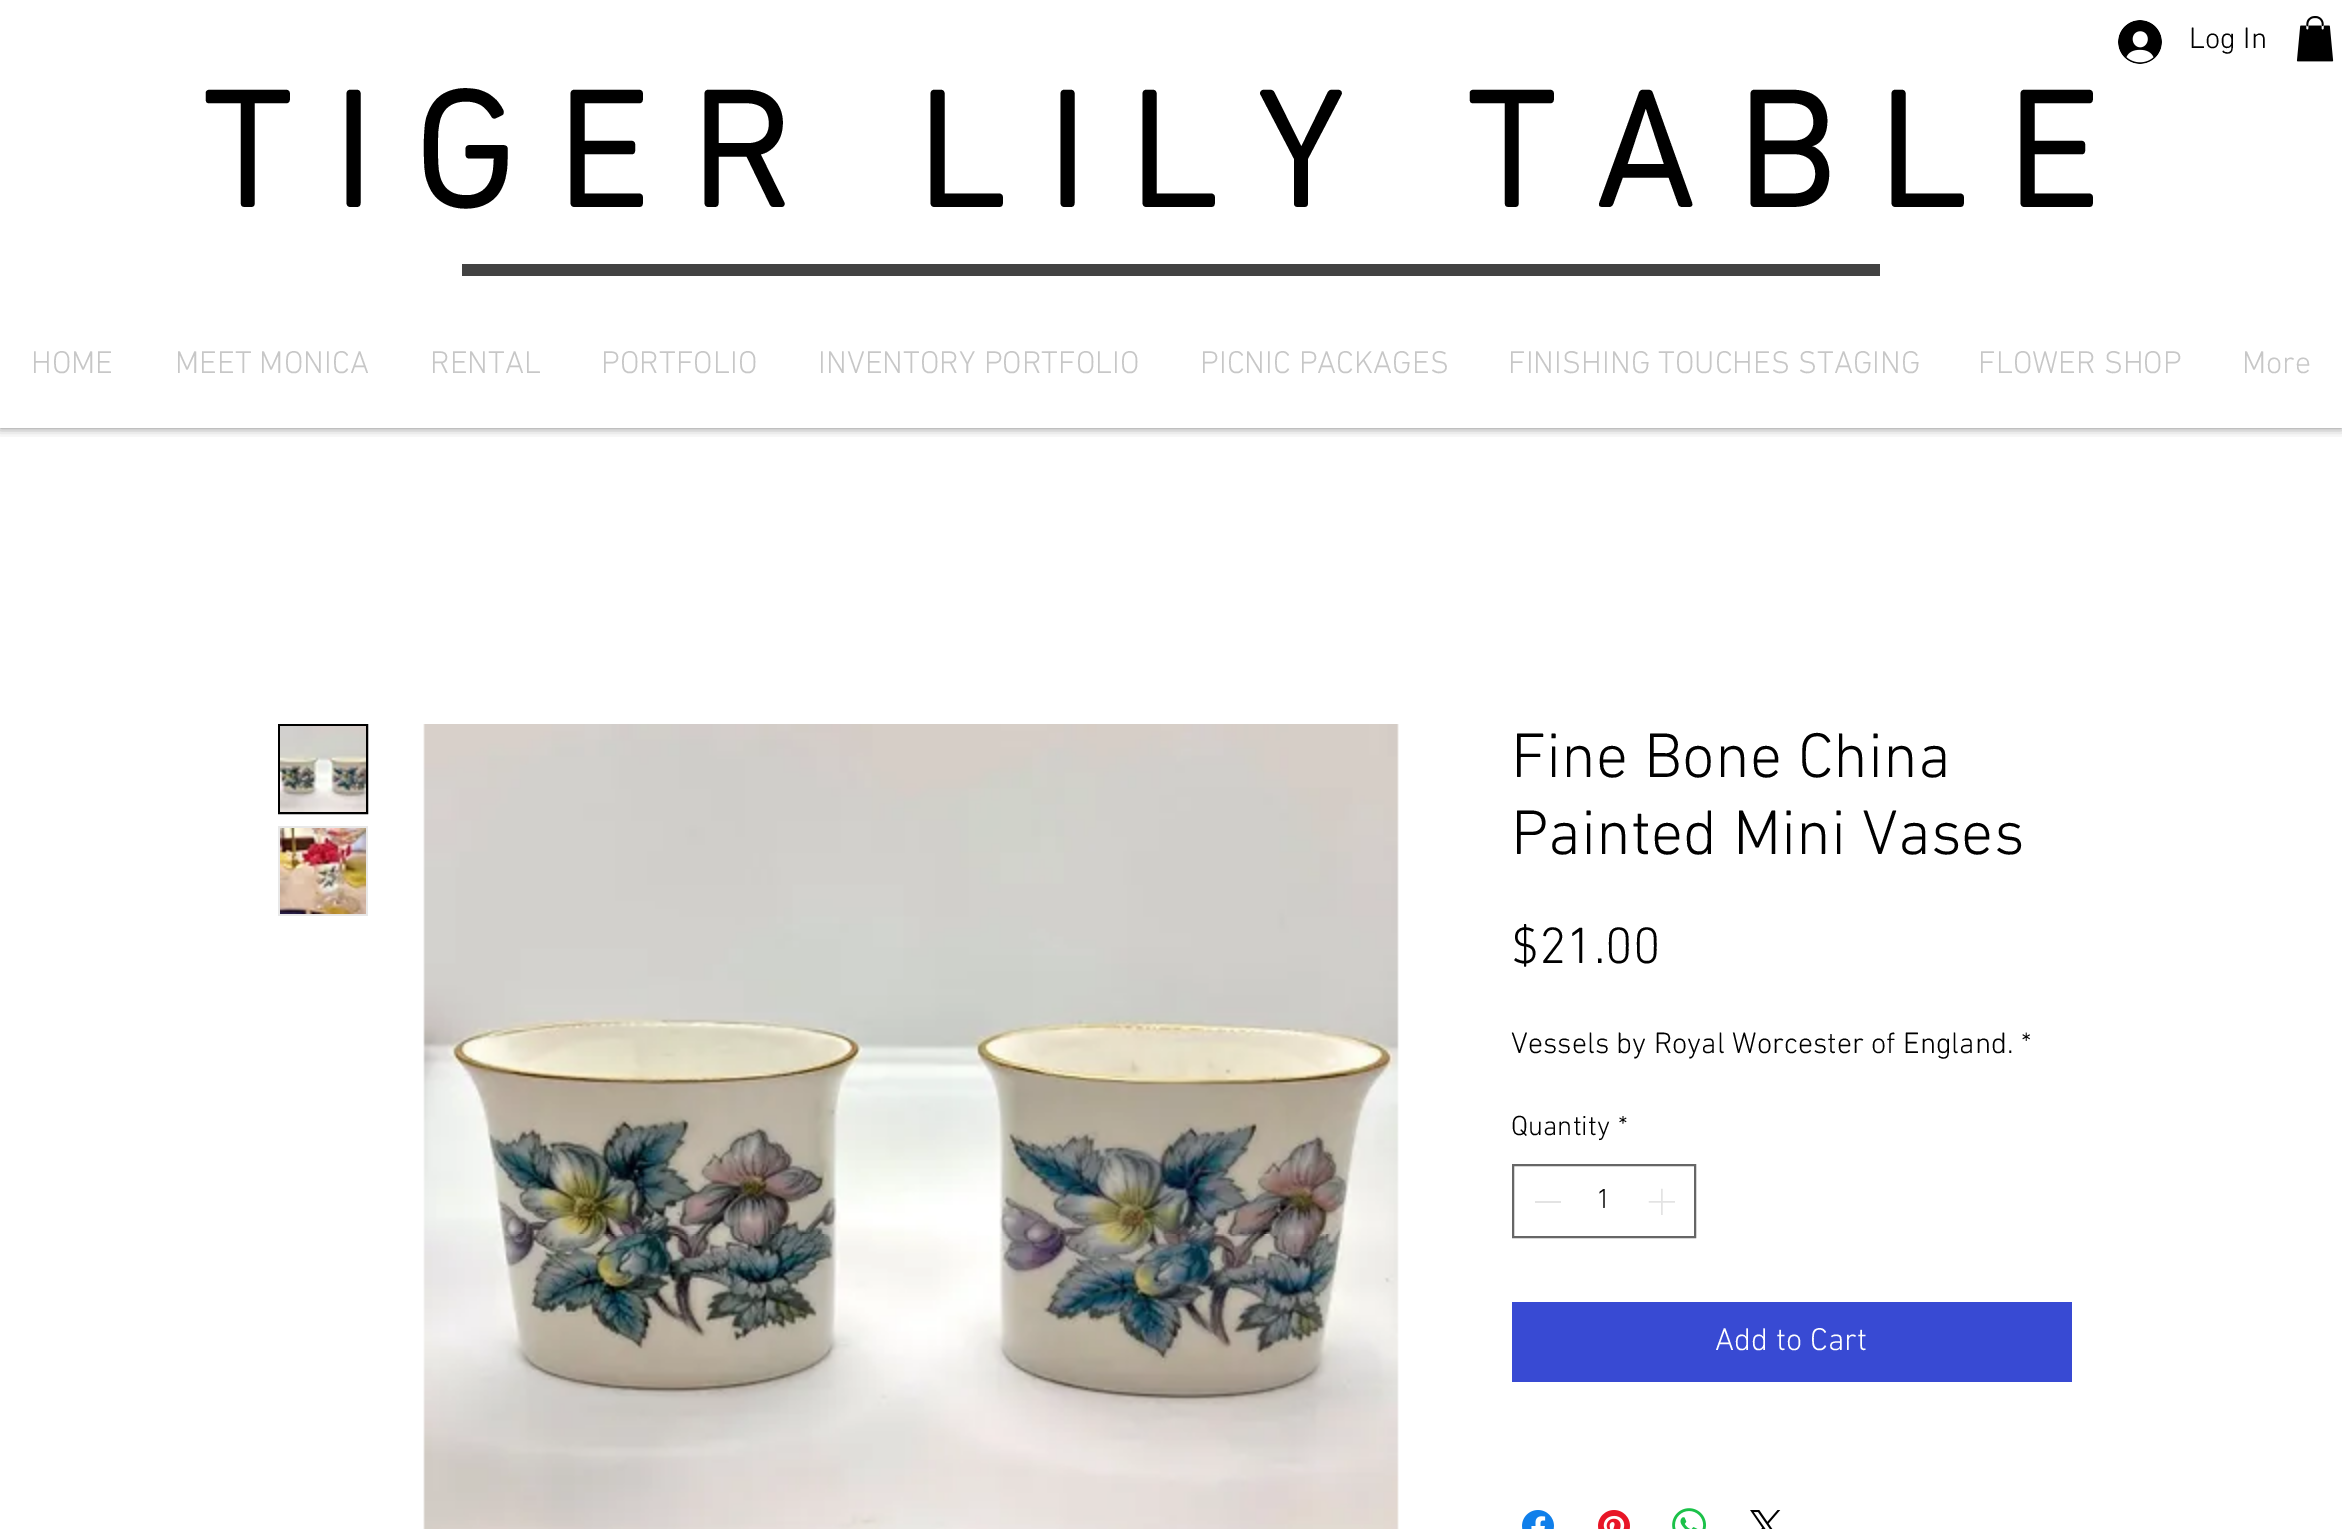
%!PS
<< /PageSize [2342 1529] /PageUsesTransparency true >> setpagedevice
/rgb { 3 { 255 div 3 1 roll } repeat setrgbcolor } def
/font { [ exch dup neg 0 0 3 -1 roll 0 0 ] selectfont } def
/alpha { dup .setfillconstantalpha .setstrokeconstantalpha } def
/roundrect { 5 dict begin { /r /h /w /y /x } { exch def } forall
  x r add y moveto x w add y 2 copy h add r arct x w add y h add x 1 index r arct
  x y h add x y r arct x y 2 copy exch w add exch r arct closepath end } def
/shadow { 12 dict begin { /a /b /q /h /w /y /x } { exch def } forall gsave /was 0 def
  9 -2 -9 { dup b mul 4 div /e exch def 1 sub .425 mul 2.718 exch exp 1 add a .99 .min exch div /now exch def
    1 1 now sub 1 was sub div sub alpha /was now def
    w h .min e 2 mul add 0 gt { x e sub y e sub w e 2 mul add h e 2 mul add
      q e add b .6 mul add w h .min 2 div e add .min 0 .max roundrect fill } if } for grestore end } def
/picture { 5 dict begin { /h /w /y /x /name } { exch def } forall
  gsave x y translate w h scale
  w h 8 [w 0 0 h 0 0] name (r) file false 3 colorimage grestore end } def
0 .pushpdf14devicefilter
0 1529 translate 1 -1 scale
4 setmiterlimit
255 255 255 rgb
0 0 2342 1529 rectfill
gsave
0 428 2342 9 rectclip
0 0 0 rgb
0 0 2342 428 0 5 0.5 shadow
grestore
(img/1.rgb) 2118 20 44 44 picture
(img/2.rgb) 2296 16 38 46 picture
66 66 66 rgb
462 264 1418 12 rectfill
0 0 0 rgb
2 setlinewidth
279 725 88 88 rectstroke
(img/3.rgb) 280 726 86 86 picture
232 232 232 rgb
278 826 90 90 rectfill
(img/4.rgb) 280 828 86 86 picture
(img/5.rgb) 423 724 976 805 picture
102 102 102 rgb
1513 1165 182 72 rectstroke
227 227 227 rgb
1535 1201 26 2 rectfill
(img/6.rgb) 1648 1188 27 27 picture
56 74 211 rgb
1512 1302 560 80 rectfill
(img/7.rgb) 1522 1510 32 19 picture
(img/8.rgb) 1598 1510 32 19 picture
(img/9.rgb) 1672 1508 34 21 picture
(img/10.rgb) 1750 1510 31 19 picture
/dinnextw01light-Light 30 font
0 0 0 rgb
2189 48 moveto (Log In) show
/dinnextw01light-Bold 166 font
202 207 moveto 41.5 0 (TIGER LILY TABLE) ashow
/dinnextw01light-Light 32 font
199 199 199 rgb
[
  [(HOME) 31 373]
  [(MEET MONICA) 175 373]
  [(RENTAL) 430 373]
  [(PORTFOLIO) 601 373]
  [(INVENTORY PORTFOLIO) 818 373]
  [(PICNIC PACKAGES) 1200 373]
  [(FINISHING TOUCHES STAGING) 1508 373]
  [(FLOWER SHOP) 1978 373]
  [(More) 2242 373]
] { aload pop moveto show } forall
/dinnextw01light-Light 64 font
0 0 0 rgb
1511 777 moveto (Fine Bone China) show
1511 854 moveto (Painted Mini Vases) show
/dinnextw01light-Light 52 font
1511 963 moveto ($21.00) show
/dinnextw01light-Light 30 font
1511 1053 moveto (Vessels by Royal Worcester of England. *) show
/dinnextw01light-Light 28 font
[
  [(Quantity) 1511 1135]
  [(*) 1618 1135]
  [(1) 1596 1208]
] { aload pop moveto show } forall
/dinnextw01light-Light 32 font
255 255 255 rgb
1715 1350 moveto (Add to Cart) show
.poppdf14devicefilter showpage
